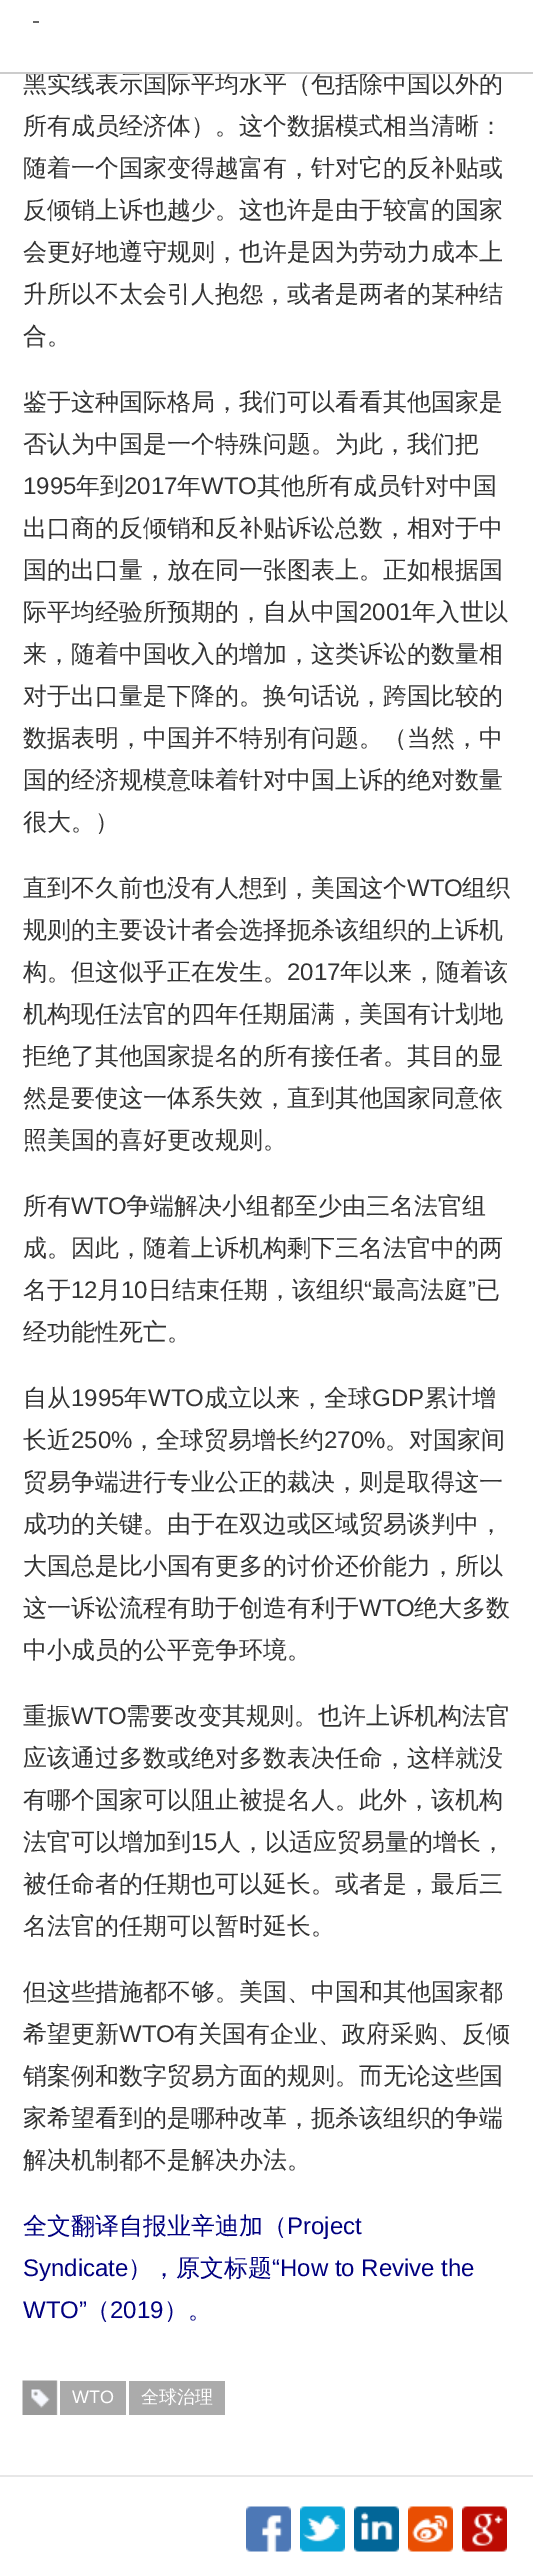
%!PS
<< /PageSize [533 2567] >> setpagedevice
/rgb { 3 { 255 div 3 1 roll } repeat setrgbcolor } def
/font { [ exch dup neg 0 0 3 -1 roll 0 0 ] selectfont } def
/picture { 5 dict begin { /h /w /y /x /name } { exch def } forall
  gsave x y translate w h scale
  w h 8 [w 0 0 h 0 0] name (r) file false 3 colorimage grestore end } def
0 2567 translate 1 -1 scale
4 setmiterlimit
255 255 255 rgb
0 0 533 2567 rectfill
102 102 102 rgb
33 21 6 2 rectfill
(img/1.rgb) 22 2380 36 35 picture
[
  [60 2381 66 34 171 171 171]
  [129 2381 96 34 171 171 171]
  [0 2475 533 2 231 231 231]
] { aload pop rgb rectfill } forall
(img/2.rgb) 246 2506 45 46 picture
(img/3.rgb) 300 2506 45 46 picture
(img/4.rgb) 354 2506 45 46 picture
(img/5.rgb) 408 2506 45 46 picture
(img/6.rgb) 462 2506 45 46 picture
/WenQuanYiZenHei-Medium 24 font
51 51 51 rgb
23 92 moveto (黑实线表示国际平均水平（包括除中国以外的) show
204 204 204 rgb
0 72 533 2 rectfill
255 255 255 rgb
56 71 2 1 rectfill
51 51 51 rgb
[
  [(所有成员经济体）。这个数据模式相当清晰：) 23 134]
  [(随着一个国家变得越富有，针对它的反补贴或) 23 176]
  [(反倾销上诉也越少。这也许是由于较富的国家) 23 218]
  [(会更好地遵守规则，也许是因为劳动力成本上) 23 260]
  [(升所以不太会引人抱怨，或者是两者的某种结) 23 302]
  [(合。) 23 344]
  [(鉴于这种国际格局，我们可以看看其他国家是) 23 410]
  [(否认为中国是一个特殊问题。为此，我们把) 23 452]
] { aload pop moveto show } forall
/LiberationSans-Regular 24 font
23 494 moveto (1995) show
/WenQuanYiZenHei-Medium 24 font
76 494 moveto (年到) show
/LiberationSans-Regular 24 font
124 494 moveto (2017) show
/WenQuanYiZenHei-Medium 24 font
177 494 moveto (年) show
/LiberationSans-Regular 24 font
201 494 moveto (WTO) show
/WenQuanYiZenHei-Medium 24 font
[
  [(其他所有成员针对中国) 257 494]
  [(出口商的反倾销和反补贴诉讼总数，相对于中) 23 536]
  [(国的出口量，放在同一张图表上。正如根据国) 23 578]
  [(际平均经验所预期的，自从中国) 23 620]
] { aload pop moveto show } forall
/LiberationSans-Regular 24 font
359 620 moveto (2001) show
/WenQuanYiZenHei-Medium 24 font
[
  [(年入世以) 412 620]
  [(来，随着中国收入的增加，这类诉讼的数量相) 23 662]
  [(对于出口量是下降的。换句话说，跨国比较的) 23 704]
  [(数据表明，中国并不特别有问题。（当然，中) 23 746]
  [(国的经济规模意味着针对中国上诉的绝对数量) 23 788]
  [(很大。）) 23 830]
  [(直到不久前也没有人想到，美国这个) 23 896]
] { aload pop moveto show } forall
/LiberationSans-Regular 24 font
407 896 moveto (WTO) show
/WenQuanYiZenHei-Medium 24 font
[
  [(组织) 462 896]
  [(规则的主要设计者会选择扼杀该组织的上诉机) 23 938]
  [(构。但这似乎正在发生。) 23 980]
] { aload pop moveto show } forall
/LiberationSans-Regular 24 font
287 980 moveto (2017) show
/WenQuanYiZenHei-Medium 24 font
[
  [(年以来，随着该) 340 980]
  [(机构现任法官的四年任期届满，美国有计划地) 23 1022]
  [(拒绝了其他国家提名的所有接任者。其目的显) 23 1064]
  [(然是要使这一体系失效，直到其他国家同意依) 23 1106]
  [(照美国的喜好更改规则。) 23 1148]
  [(所有) 23 1214]
] { aload pop moveto show } forall
/LiberationSans-Regular 24 font
71 1214 moveto (WTO) show
/WenQuanYiZenHei-Medium 24 font
[
  [(争端解决小组都至少由三名法官组) 126 1214]
  [(成。因此，随着上诉机构剩下三名法官中的两) 23 1256]
  [(名于) 23 1298]
] { aload pop moveto show } forall
/LiberationSans-Regular 24 font
71 1298 moveto (12) show
/WenQuanYiZenHei-Medium 24 font
97 1298 moveto (月) show
/LiberationSans-Regular 24 font
121 1298 moveto (10) show
/WenQuanYiZenHei-Medium 24 font
148 1298 moveto (日结束任期，该组织) show
/LiberationSans-Regular 24 font
364 1298 moveto (“) show
/WenQuanYiZenHei-Medium 24 font
372 1298 moveto (最高法庭) show
/LiberationSans-Regular 24 font
468 1298 moveto (”) show
/WenQuanYiZenHei-Medium 24 font
[
  [(已) 476 1298]
  [(经功能性死亡。) 23 1340]
  [(自从) 23 1406]
] { aload pop moveto show } forall
/LiberationSans-Regular 24 font
71 1406 moveto (1995) show
/WenQuanYiZenHei-Medium 24 font
124 1406 moveto (年) show
/LiberationSans-Regular 24 font
148 1406 moveto (WTO) show
/WenQuanYiZenHei-Medium 24 font
204 1406 moveto (成立以来，全球) show
/LiberationSans-Regular 24 font
372 1406 moveto (GDP) show
/WenQuanYiZenHei-Medium 24 font
424 1406 moveto (累计增) show
23 1448 moveto (长近) show
/LiberationSans-Regular 24 font
71 1448 moveto (250%) show
/WenQuanYiZenHei-Medium 24 font
132 1448 moveto (，全球贸易增长约) show
/LiberationSans-Regular 24 font
324 1448 moveto (270%) show
/WenQuanYiZenHei-Medium 24 font
[
  [(。对国家间) 385 1448]
  [(贸易争端进行专业公正的裁决，则是取得这一) 23 1490]
  [(成功的关键。由于在双边或区域贸易谈判中，) 23 1532]
  [(大国总是比小国有更多的讨价还价能力，所以) 23 1574]
  [(这一诉讼流程有助于创造有利于) 23 1616]
] { aload pop moveto show } forall
/LiberationSans-Regular 24 font
359 1616 moveto (WTO) show
/WenQuanYiZenHei-Medium 24 font
[
  [(绝大多数) 414 1616]
  [(中小成员的公平竞争环境。) 23 1658]
  [(重振) 23 1724]
] { aload pop moveto show } forall
/LiberationSans-Regular 24 font
71 1724 moveto (WTO) show
/WenQuanYiZenHei-Medium 24 font
[
  [(需要改变其规则。也许上诉机构法官) 126 1724]
  [(应该通过多数或绝对多数表决任命，这样就没) 23 1766]
  [(有哪个国家可以阻止被提名人。此外，该机构) 23 1808]
  [(法官可以增加到) 23 1850]
] { aload pop moveto show } forall
/LiberationSans-Regular 24 font
191 1850 moveto (15) show
/WenQuanYiZenHei-Medium 24 font
[
  [(人，以适应贸易量的增长，) 217 1850]
  [(被任命者的任期也可以延长。或者是，最后三) 23 1892]
  [(名法官的任期可以暂时延长。) 23 1934]
  [(但这些措施都不够。美国、中国和其他国家都) 23 2000]
  [(希望更新) 23 2042]
] { aload pop moveto show } forall
/LiberationSans-Regular 24 font
119 2042 moveto (WTO) show
/WenQuanYiZenHei-Medium 24 font
[
  [(有关国有企业、政府采购、反倾) 174 2042]
  [(销案例和数字贸易方面的规则。而无论这些国) 23 2084]
  [(家希望看到的是哪种改革，扼杀该组织的争端) 23 2126]
  [(解决机制都不是解决办法。) 23 2168]
] { aload pop moveto show } forall
0 0 128 rgb
23 2234 moveto (全文翻译自报业辛迪加（) show
/LiberationSans-Regular 24 font
287 2234 moveto (Project) show
23 2276 moveto (Syndicate) show
/WenQuanYiZenHei-Medium 24 font
128 2276 moveto (），原文标题) show
/LiberationSans-Regular 24 font
272 2276 moveto (“How to Revive the) show
23 2318 moveto (WTO”) show
/WenQuanYiZenHei-Medium 24 font
86 2318 moveto (（) show
/LiberationSans-Regular 24 font
110 2318 moveto (2019) show
/WenQuanYiZenHei-Medium 24 font
164 2318 moveto (）。) show
/LiberationSans-Regular 18 font
255 255 255 rgb
72 2403 moveto (WTO) show
/WenQuanYiZenHei-Medium 18 font
141 2403 moveto (全球治理) show
showpage
